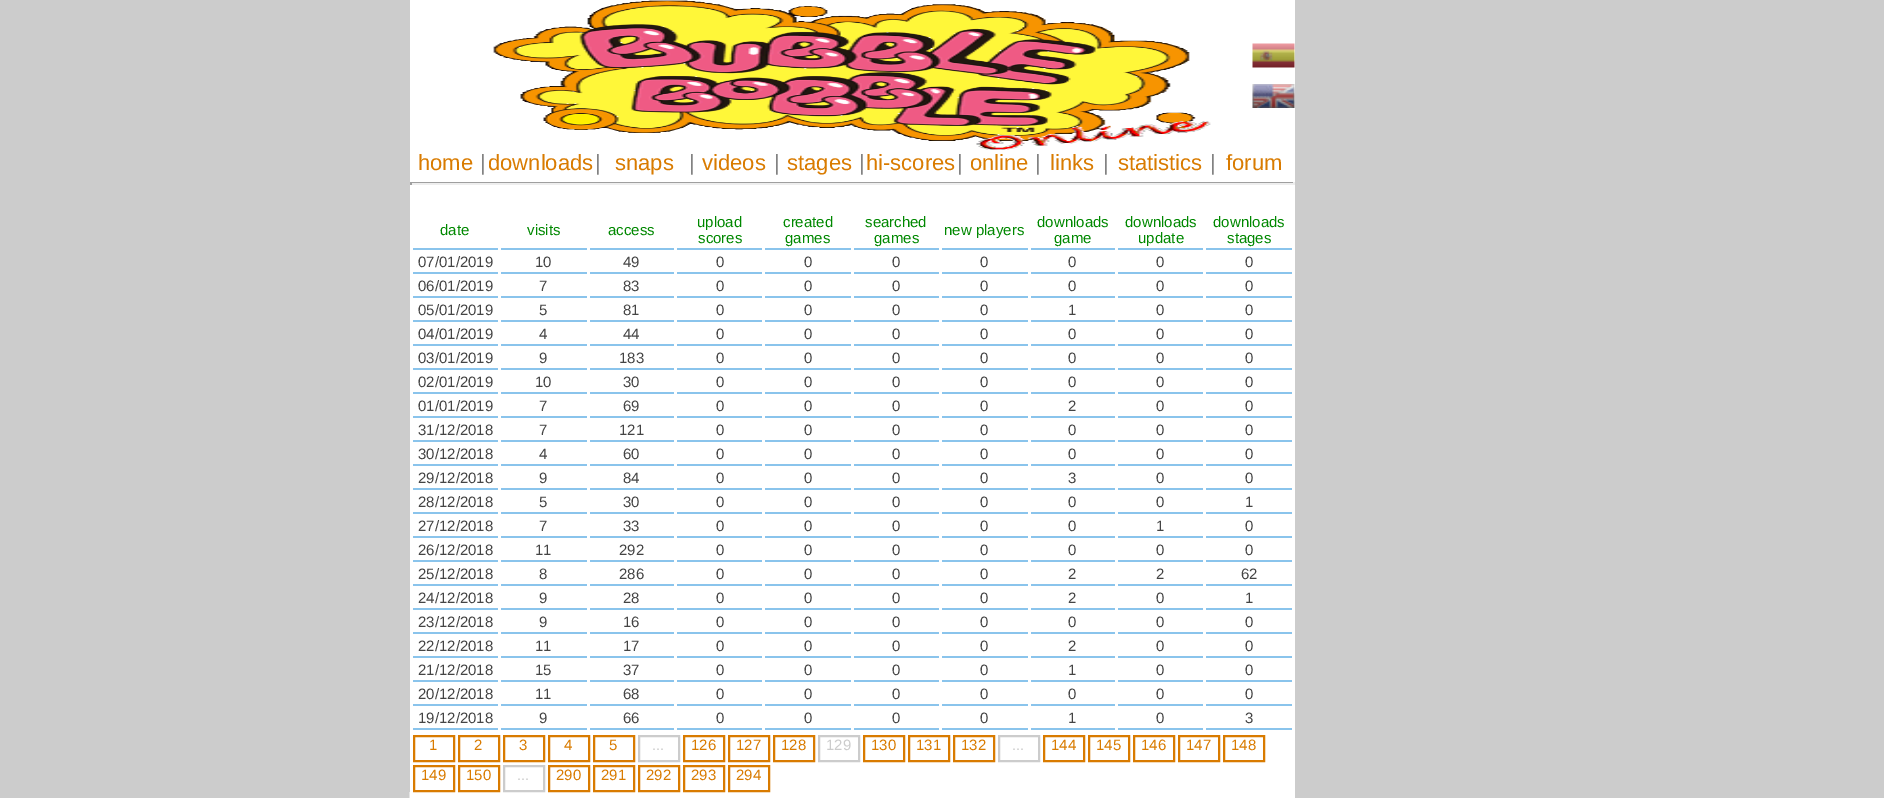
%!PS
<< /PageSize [1884 798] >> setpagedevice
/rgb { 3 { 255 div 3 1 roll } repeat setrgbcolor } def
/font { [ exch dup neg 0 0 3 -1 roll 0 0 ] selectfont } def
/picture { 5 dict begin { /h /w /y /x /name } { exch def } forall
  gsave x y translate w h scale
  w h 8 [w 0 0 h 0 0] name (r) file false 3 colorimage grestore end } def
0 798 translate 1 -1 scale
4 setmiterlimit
204 204 204 rgb
0 0 1884 798 rectfill
255 255 255 rgb
410 0 885 798 rectfill
(img/1.rgb) 493 0 718 150 picture
(img/2.rgb) 1252 43 43 25 picture
(img/3.rgb) 1252 84 43 24 picture
[
  [410 182 885 1 159 159 159]
  [1293 182 2 3 238 238 238]
  [410 183 885 2 238 238 238]
  [410 182 2 3 159 159 159]
  [413 248 85 2 138 196 236]
  [501 248 86 2 138 196 236]
  [590 248 84 2 138 196 236]
  [677 248 85 2 138 196 236]
  [765 248 86 2 138 196 236]
  [854 248 85 2 138 196 236]
  [942 248 86 2 138 196 236]
  [1031 248 84 2 138 196 236]
  [1118 248 85 2 138 196 236]
  [1206 248 86 2 138 196 236]
  [413 272 85 2 138 196 236]
  [501 272 86 2 138 196 236]
  [590 272 84 2 138 196 236]
  [677 272 85 2 138 196 236]
  [765 272 86 2 138 196 236]
  [854 272 85 2 138 196 236]
  [942 272 86 2 138 196 236]
  [1031 272 84 2 138 196 236]
  [1118 272 85 2 138 196 236]
  [1206 272 86 2 138 196 236]
  [413 296 85 2 138 196 236]
  [501 296 86 2 138 196 236]
  [590 296 84 2 138 196 236]
  [677 296 85 2 138 196 236]
  [765 296 86 2 138 196 236]
  [854 296 85 2 138 196 236]
  [942 296 86 2 138 196 236]
  [1031 296 84 2 138 196 236]
  [1118 296 85 2 138 196 236]
  [1206 296 86 2 138 196 236]
  [413 320 85 2 138 196 236]
  [501 320 86 2 138 196 236]
  [590 320 84 2 138 196 236]
  [677 320 85 2 138 196 236]
  [765 320 86 2 138 196 236]
  [854 320 85 2 138 196 236]
  [942 320 86 2 138 196 236]
  [1031 320 84 2 138 196 236]
  [1118 320 85 2 138 196 236]
  [1206 320 86 2 138 196 236]
  [413 344 85 2 138 196 236]
  [501 344 86 2 138 196 236]
  [590 344 84 2 138 196 236]
  [677 344 85 2 138 196 236]
  [765 344 86 2 138 196 236]
  [854 344 85 2 138 196 236]
  [942 344 86 2 138 196 236]
  [1031 344 84 2 138 196 236]
  [1118 344 85 2 138 196 236]
  [1206 344 86 2 138 196 236]
  [413 368 85 2 138 196 236]
  [501 368 86 2 138 196 236]
  [590 368 84 2 138 196 236]
  [677 368 85 2 138 196 236]
  [765 368 86 2 138 196 236]
  [854 368 85 2 138 196 236]
  [942 368 86 2 138 196 236]
  [1031 368 84 2 138 196 236]
  [1118 368 85 2 138 196 236]
  [1206 368 86 2 138 196 236]
  [413 392 85 2 138 196 236]
  [501 392 86 2 138 196 236]
  [590 392 84 2 138 196 236]
  [677 392 85 2 138 196 236]
  [765 392 86 2 138 196 236]
  [854 392 85 2 138 196 236]
  [942 392 86 2 138 196 236]
  [1031 392 84 2 138 196 236]
  [1118 392 85 2 138 196 236]
  [1206 392 86 2 138 196 236]
  [413 416 85 2 138 196 236]
  [501 416 86 2 138 196 236]
  [590 416 84 2 138 196 236]
  [677 416 85 2 138 196 236]
  [765 416 86 2 138 196 236]
  [854 416 85 2 138 196 236]
  [942 416 86 2 138 196 236]
  [1031 416 84 2 138 196 236]
  [1118 416 85 2 138 196 236]
  [1206 416 86 2 138 196 236]
  [413 440 85 2 138 196 236]
  [501 440 86 2 138 196 236]
  [590 440 84 2 138 196 236]
  [677 440 85 2 138 196 236]
  [765 440 86 2 138 196 236]
  [854 440 85 2 138 196 236]
  [942 440 86 2 138 196 236]
  [1031 440 84 2 138 196 236]
  [1118 440 85 2 138 196 236]
  [1206 440 86 2 138 196 236]
  [413 464 85 2 138 196 236]
  [501 464 86 2 138 196 236]
  [590 464 84 2 138 196 236]
  [677 464 85 2 138 196 236]
  [765 464 86 2 138 196 236]
  [854 464 85 2 138 196 236]
  [942 464 86 2 138 196 236]
  [1031 464 84 2 138 196 236]
  [1118 464 85 2 138 196 236]
  [1206 464 86 2 138 196 236]
  [413 488 85 2 138 196 236]
  [501 488 86 2 138 196 236]
  [590 488 84 2 138 196 236]
  [677 488 85 2 138 196 236]
  [765 488 86 2 138 196 236]
  [854 488 85 2 138 196 236]
  [942 488 86 2 138 196 236]
  [1031 488 84 2 138 196 236]
  [1118 488 85 2 138 196 236]
  [1206 488 86 2 138 196 236]
  [413 512 85 2 138 196 236]
  [501 512 86 2 138 196 236]
  [590 512 84 2 138 196 236]
  [677 512 85 2 138 196 236]
  [765 512 86 2 138 196 236]
  [854 512 85 2 138 196 236]
  [942 512 86 2 138 196 236]
  [1031 512 84 2 138 196 236]
  [1118 512 85 2 138 196 236]
  [1206 512 86 2 138 196 236]
  [413 536 85 2 138 196 236]
  [501 536 86 2 138 196 236]
  [590 536 84 2 138 196 236]
  [677 536 85 2 138 196 236]
  [765 536 86 2 138 196 236]
  [854 536 85 2 138 196 236]
  [942 536 86 2 138 196 236]
  [1031 536 84 2 138 196 236]
  [1118 536 85 2 138 196 236]
  [1206 536 86 2 138 196 236]
  [413 560 85 2 138 196 236]
  [501 560 86 2 138 196 236]
  [590 560 84 2 138 196 236]
  [677 560 85 2 138 196 236]
  [765 560 86 2 138 196 236]
  [854 560 85 2 138 196 236]
  [942 560 86 2 138 196 236]
  [1031 560 84 2 138 196 236]
  [1118 560 85 2 138 196 236]
  [1206 560 86 2 138 196 236]
  [413 584 85 2 138 196 236]
  [501 584 86 2 138 196 236]
  [590 584 84 2 138 196 236]
  [677 584 85 2 138 196 236]
  [765 584 86 2 138 196 236]
  [854 584 85 2 138 196 236]
  [942 584 86 2 138 196 236]
  [1031 584 84 2 138 196 236]
  [1118 584 85 2 138 196 236]
  [1206 584 86 2 138 196 236]
  [413 608 85 2 138 196 236]
  [501 608 86 2 138 196 236]
  [590 608 84 2 138 196 236]
  [677 608 85 2 138 196 236]
  [765 608 86 2 138 196 236]
  [854 608 85 2 138 196 236]
  [942 608 86 2 138 196 236]
  [1031 608 84 2 138 196 236]
  [1118 608 85 2 138 196 236]
  [1206 608 86 2 138 196 236]
  [413 632 85 2 138 196 236]
  [501 632 86 2 138 196 236]
  [590 632 84 2 138 196 236]
  [677 632 85 2 138 196 236]
  [765 632 86 2 138 196 236]
  [854 632 85 2 138 196 236]
  [942 632 86 2 138 196 236]
  [1031 632 84 2 138 196 236]
  [1118 632 85 2 138 196 236]
  [1206 632 86 2 138 196 236]
  [413 656 85 2 138 196 236]
  [501 656 86 2 138 196 236]
  [590 656 84 2 138 196 236]
  [677 656 85 2 138 196 236]
  [765 656 86 2 138 196 236]
  [854 656 85 2 138 196 236]
  [942 656 86 2 138 196 236]
  [1031 656 84 2 138 196 236]
  [1118 656 85 2 138 196 236]
  [1206 656 86 2 138 196 236]
  [413 680 85 2 138 196 236]
  [501 680 86 2 138 196 236]
  [590 680 84 2 138 196 236]
  [677 680 85 2 138 196 236]
  [765 680 86 2 138 196 236]
  [854 680 85 2 138 196 236]
  [942 680 86 2 138 196 236]
  [1031 680 84 2 138 196 236]
  [1118 680 85 2 138 196 236]
  [1206 680 86 2 138 196 236]
  [413 704 85 2 138 196 236]
  [501 704 86 2 138 196 236]
  [590 704 84 2 138 196 236]
  [677 704 85 2 138 196 236]
  [765 704 86 2 138 196 236]
  [854 704 85 2 138 196 236]
  [942 704 86 2 138 196 236]
  [1031 704 84 2 138 196 236]
  [1118 704 85 2 138 196 236]
  [1206 704 86 2 138 196 236]
  [413 728 85 2 138 196 236]
  [501 728 86 2 138 196 236]
  [590 728 84 2 138 196 236]
  [677 728 85 2 138 196 236]
  [765 728 86 2 138 196 236]
  [854 728 85 2 138 196 236]
  [942 728 86 2 138 196 236]
  [1031 728 84 2 138 196 236]
  [1118 728 85 2 138 196 236]
  [1206 728 86 2 138 196 236]
] { aload pop rgb rectfill } forall
217 123 0 rgb
2 setlinewidth
414 736 40 25 rectstroke
459 736 40 25 rectstroke
504 736 40 25 rectstroke
549 736 40 25 rectstroke
594 736 40 25 rectstroke
204 204 204 rgb
639 736 40 25 rectstroke
217 123 0 rgb
684 736 40 25 rectstroke
729 736 40 25 rectstroke
774 736 40 25 rectstroke
204 204 204 rgb
819 736 40 25 rectstroke
217 123 0 rgb
864 736 40 25 rectstroke
909 736 40 25 rectstroke
954 736 40 25 rectstroke
204 204 204 rgb
999 736 40 25 rectstroke
217 123 0 rgb
1044 736 40 25 rectstroke
1089 736 40 25 rectstroke
1134 736 40 25 rectstroke
1179 736 40 25 rectstroke
1224 736 40 25 rectstroke
414 766 40 25 rectstroke
459 766 40 25 rectstroke
204 204 204 rgb
504 766 40 25 rectstroke
217 123 0 rgb
549 766 40 25 rectstroke
594 766 40 25 rectstroke
639 766 40 25 rectstroke
684 766 40 25 rectstroke
729 766 40 25 rectstroke
229 229 229 rgb
409 792 1 6 rectfill
/LiberationSans-Regular 22 font
217 123 0 rgb
418 170 moveto (home) show
130 130 130 rgb
480 170 moveto (|) show
217 123 0 rgb
488 170 moveto (downloads) show
130 130 130 rgb
595 170 moveto (|) show
217 123 0 rgb
615 170 moveto (snaps) show
130 130 130 rgb
689 170 moveto (|) show
217 123 0 rgb
702 170 moveto (videos) show
130 130 130 rgb
774 170 moveto (|) show
217 123 0 rgb
787 170 moveto (stages) show
130 130 130 rgb
859 170 moveto (|) show
217 123 0 rgb
866 170 moveto (hi-scores) show
130 130 130 rgb
957 170 moveto (|) show
217 123 0 rgb
970 170 moveto (online) show
130 130 130 rgb
1035 170 moveto (|) show
217 123 0 rgb
1050 170 moveto (links) show
130 130 130 rgb
1103 170 moveto (|) show
217 123 0 rgb
1118 170 moveto (statistics) show
130 130 130 rgb
1210 170 moveto (|) show
217 123 0 rgb
1226 170 moveto (forum) show
/LiberationSans-Regular 15 font
0 136 0 rgb
[
  [(date) 440 235]
  [(visits) 527 235]
  [(access) 608 235]
  [(upload) 697 227]
  [(scores) 698 243]
  [(created) 783 227]
  [(games) 785 243]
  [(searched) 865 227]
  [(games) 874 243]
  [(new players) 944 235]
  [(downloads) 1037 227]
  [(game) 1054 243]
  [(downloads) 1125 227]
  [(update) 1138 243]
  [(downloads) 1213 227]
  [(stages) 1227 243]
] { aload pop moveto show } forall
68 68 68 rgb
[
  [(07/01/2019) 418 267]
  [(10) 535 267]
  [(49) 623 267]
  [(0) 716 267]
  [(0) 804 267]
  [(0) 892 267]
  [(0) 980 267]
  [(0) 1068 267]
  [(0) 1156 267]
  [(0) 1245 267]
  [(06/01/2019) 418 291]
  [(7) 539 291]
  [(83) 623 291]
  [(0) 716 291]
  [(0) 804 291]
  [(0) 892 291]
  [(0) 980 291]
  [(0) 1068 291]
  [(0) 1156 291]
  [(0) 1245 291]
  [(05/01/2019) 418 315]
  [(5) 539 315]
  [(81) 623 315]
  [(0) 716 315]
  [(0) 804 315]
  [(0) 892 315]
  [(0) 980 315]
  [(1) 1068 315]
  [(0) 1156 315]
  [(0) 1245 315]
  [(04/01/2019) 418 339]
  [(4) 539 339]
  [(44) 623 339]
  [(0) 716 339]
  [(0) 804 339]
  [(0) 892 339]
  [(0) 980 339]
  [(0) 1068 339]
  [(0) 1156 339]
  [(0) 1245 339]
  [(03/01/2019) 418 363]
  [(9) 539 363]
  [(183) 619 363]
  [(0) 716 363]
  [(0) 804 363]
  [(0) 892 363]
  [(0) 980 363]
  [(0) 1068 363]
  [(0) 1156 363]
  [(0) 1245 363]
  [(02/01/2019) 418 387]
  [(10) 535 387]
  [(30) 623 387]
  [(0) 716 387]
  [(0) 804 387]
  [(0) 892 387]
  [(0) 980 387]
  [(0) 1068 387]
  [(0) 1156 387]
  [(0) 1245 387]
  [(01/01/2019) 418 411]
  [(7) 539 411]
  [(69) 623 411]
  [(0) 716 411]
  [(0) 804 411]
  [(0) 892 411]
  [(0) 980 411]
  [(2) 1068 411]
  [(0) 1156 411]
  [(0) 1245 411]
  [(31/12/2018) 418 435]
  [(7) 539 435]
  [(121) 619 435]
  [(0) 716 435]
  [(0) 804 435]
  [(0) 892 435]
  [(0) 980 435]
  [(0) 1068 435]
  [(0) 1156 435]
  [(0) 1245 435]
  [(30/12/2018) 418 459]
  [(4) 539 459]
  [(60) 623 459]
  [(0) 716 459]
  [(0) 804 459]
  [(0) 892 459]
  [(0) 980 459]
  [(0) 1068 459]
  [(0) 1156 459]
  [(0) 1245 459]
  [(29/12/2018) 418 483]
  [(9) 539 483]
  [(84) 623 483]
  [(0) 716 483]
  [(0) 804 483]
  [(0) 892 483]
  [(0) 980 483]
  [(3) 1068 483]
  [(0) 1156 483]
  [(0) 1245 483]
  [(28/12/2018) 418 507]
  [(5) 539 507]
  [(30) 623 507]
  [(0) 716 507]
  [(0) 804 507]
  [(0) 892 507]
  [(0) 980 507]
  [(0) 1068 507]
  [(0) 1156 507]
  [(1) 1245 507]
  [(27/12/2018) 418 531]
  [(7) 539 531]
  [(33) 623 531]
  [(0) 716 531]
  [(0) 804 531]
  [(0) 892 531]
  [(0) 980 531]
  [(0) 1068 531]
  [(1) 1156 531]
  [(0) 1245 531]
  [(26/12/2018) 418 555]
  [(11) 535 555]
  [(292) 619 555]
  [(0) 716 555]
  [(0) 804 555]
  [(0) 892 555]
  [(0) 980 555]
  [(0) 1068 555]
  [(0) 1156 555]
  [(0) 1245 555]
  [(25/12/2018) 418 579]
  [(8) 539 579]
  [(286) 619 579]
  [(0) 716 579]
  [(0) 804 579]
  [(0) 892 579]
  [(0) 980 579]
  [(2) 1068 579]
  [(2) 1156 579]
  [(62) 1241 579]
  [(24/12/2018) 418 603]
  [(9) 539 603]
  [(28) 623 603]
  [(0) 716 603]
  [(0) 804 603]
  [(0) 892 603]
  [(0) 980 603]
  [(2) 1068 603]
  [(0) 1156 603]
  [(1) 1245 603]
  [(23/12/2018) 418 627]
  [(9) 539 627]
  [(16) 623 627]
  [(0) 716 627]
  [(0) 804 627]
  [(0) 892 627]
  [(0) 980 627]
  [(0) 1068 627]
  [(0) 1156 627]
  [(0) 1245 627]
  [(22/12/2018) 418 651]
  [(11) 535 651]
  [(17) 623 651]
  [(0) 716 651]
  [(0) 804 651]
  [(0) 892 651]
  [(0) 980 651]
  [(2) 1068 651]
  [(0) 1156 651]
  [(0) 1245 651]
  [(21/12/2018) 418 675]
  [(15) 535 675]
  [(37) 623 675]
  [(0) 716 675]
  [(0) 804 675]
  [(0) 892 675]
  [(0) 980 675]
  [(1) 1068 675]
  [(0) 1156 675]
  [(0) 1245 675]
  [(20/12/2018) 418 699]
  [(11) 535 699]
  [(68) 623 699]
  [(0) 716 699]
  [(0) 804 699]
  [(0) 892 699]
  [(0) 980 699]
  [(0) 1068 699]
  [(0) 1156 699]
  [(0) 1245 699]
  [(19/12/2018) 418 723]
  [(9) 539 723]
  [(66) 623 723]
  [(0) 716 723]
  [(0) 804 723]
  [(0) 892 723]
  [(0) 980 723]
  [(1) 1068 723]
  [(0) 1156 723]
  [(3) 1245 723]
] { aload pop moveto show } forall
217 123 0 rgb
[
  [(1) 429 750]
  [(2) 474 750]
  [(3) 519 750]
  [(4) 564 750]
  [(5) 609 750]
] { aload pop moveto show } forall
204 204 204 rgb
652 750 moveto (...) show
217 123 0 rgb
[
  [(126) 691 750]
  [(127) 736 750]
  [(128) 781 750]
] { aload pop moveto show } forall
204 204 204 rgb
826 750 moveto (129) show
217 123 0 rgb
[
  [(130) 871 750]
  [(131) 916 750]
  [(132) 961 750]
] { aload pop moveto show } forall
204 204 204 rgb
1012 750 moveto (...) show
217 123 0 rgb
[
  [(144) 1051 750]
  [(145) 1096 750]
  [(146) 1141 750]
  [(147) 1186 750]
  [(148) 1231 750]
  [(149) 421 780]
  [(150) 466 780]
] { aload pop moveto show } forall
204 204 204 rgb
517 780 moveto (...) show
217 123 0 rgb
[
  [(290) 556 780]
  [(291) 601 780]
  [(292) 646 780]
  [(293) 691 780]
  [(294) 736 780]
] { aload pop moveto show } forall
showpage
